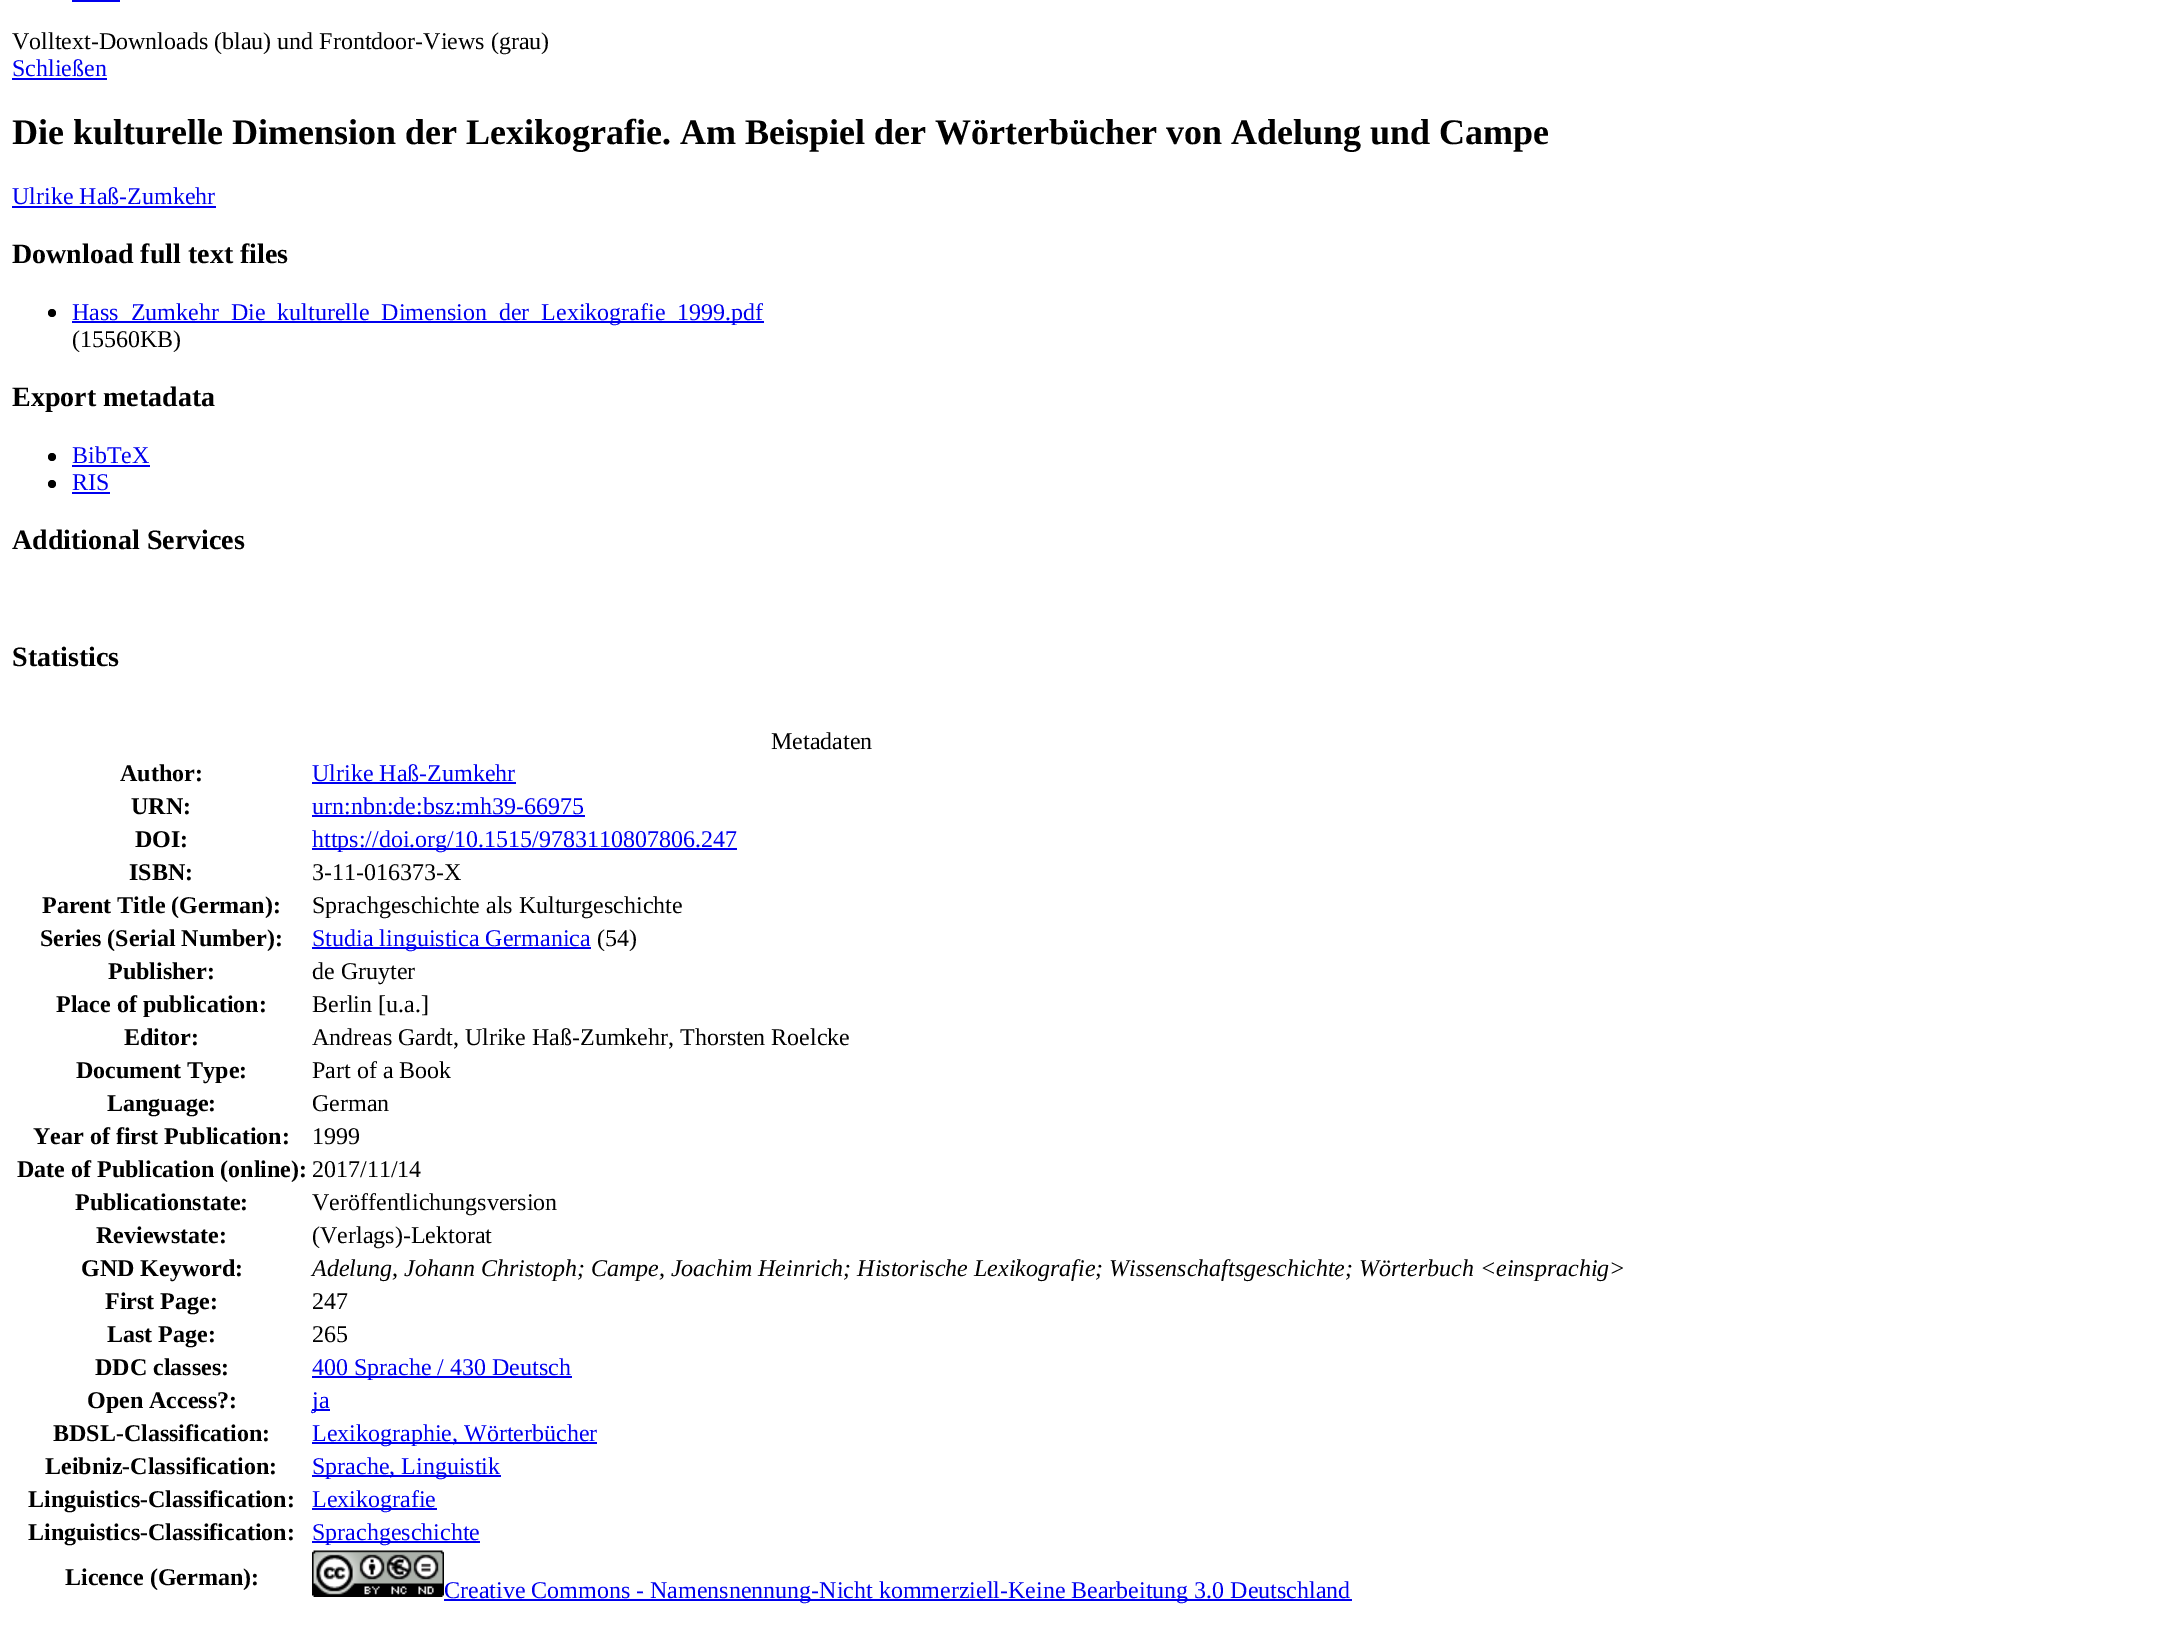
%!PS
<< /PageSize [2168 1639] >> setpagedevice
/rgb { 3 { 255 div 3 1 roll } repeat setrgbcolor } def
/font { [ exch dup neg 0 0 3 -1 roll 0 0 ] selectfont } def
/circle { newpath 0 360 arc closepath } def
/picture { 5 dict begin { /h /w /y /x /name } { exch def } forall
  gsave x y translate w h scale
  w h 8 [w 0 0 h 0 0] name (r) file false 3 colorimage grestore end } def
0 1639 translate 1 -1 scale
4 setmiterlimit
255 255 255 rgb
0 0 2168 1639 rectfill
[
  [72 0 48 2 0 0 238]
  [12 78 95 2 0 0 238]
  [12 206 204 2 0 0 238]
] { aload pop rgb rectfill } forall
0 0 0 rgb
52 313 4 circle fill
0 0 238 rgb
72 321 692 2 rectfill
0 0 0 rgb
52 457 4 circle fill
0 0 238 rgb
72 465 78 2 rectfill
0 0 0 rgb
52 484 4 circle fill
[
  [72 492 38 2 0 0 238]
  [312 782 204 2 0 0 238]
  [312 815 273 2 0 0 238]
  [312 848 425 2 0 0 238]
  [312 947 279 2 0 0 238]
  [312 1376 260 2 0 0 238]
  [312 1409 18 2 0 0 238]
  [312 1442 285 2 0 0 238]
  [312 1475 189 2 0 0 238]
  [312 1508 125 2 0 0 238]
  [312 1541 168 2 0 0 238]
] { aload pop rgb rectfill } forall
(img/1.rgb) 312 1550 132 47 picture
444 1599 908 2 rectfill
/LiberationSerif-Regular 24 font
0 0 0 rgb
12 49 moveto (Volltext-Downloads \(blau\) und Frontdoor-Views \(grau\)) show
0 0 238 rgb
12 76 moveto (Schließen) show
/LiberationSerif-Bold 36 font
0 0 0 rgb
12 144 moveto (Die kulturelle Dimension der Lexikografie. Am Beispiel der Wörterbücher von Adelung und Campe) show
/LiberationSerif-Regular 24 font
0 0 238 rgb
12 204 moveto (Ulrike Haß-Zumkehr) show
/LiberationSerif-Bold 28 font
0 0 0 rgb
12 263 moveto (Download full text files) show
/LiberationSerif-Regular 24 font
0 0 238 rgb
72 320 moveto (Hass_Zumkehr_Die_kulturelle_Dimension_der_Lexikografie_1999.pdf) show
0 0 0 rgb
72 347 moveto (\(15560KB\)) show
/LiberationSerif-Bold 28 font
12 406 moveto (Export metadata) show
/LiberationSerif-Regular 24 font
0 0 238 rgb
72 463 moveto (BibTeX) show
72 490 moveto (RIS) show
/LiberationSerif-Bold 28 font
0 0 0 rgb
12 549 moveto (Additional Services) show
12 666 moveto (Statistics) show
/LiberationSerif-Regular 24 font
771 749 moveto (Metadaten) show
/LiberationSerif-Bold 24 font
120 781 moveto (Author:) show
/LiberationSerif-Regular 24 font
0 0 238 rgb
312 781 moveto (Ulrike Haß-Zumkehr) show
/LiberationSerif-Bold 24 font
0 0 0 rgb
131 814 moveto (URN:) show
/LiberationSerif-Regular 24 font
0 0 238 rgb
312 814 moveto (urn:nbn:de:bsz:mh39-66975) show
/LiberationSerif-Bold 24 font
0 0 0 rgb
135 847 moveto (DOI:) show
/LiberationSerif-Regular 24 font
0 0 238 rgb
312 847 moveto (https://doi.org/10.1515/9783110807806.247) show
/LiberationSerif-Bold 24 font
0 0 0 rgb
129 880 moveto (ISBN:) show
/LiberationSerif-Regular 24 font
312 880 moveto (3-11-016373-X) show
/LiberationSerif-Bold 24 font
42 913 moveto (Parent Title \(German\):) show
/LiberationSerif-Regular 24 font
312 913 moveto (Sprachgeschichte als Kulturgeschichte) show
/LiberationSerif-Bold 24 font
40 946 moveto (Series \(Serial Number\):) show
/LiberationSerif-Regular 24 font
0 0 238 rgb
312 946 moveto (Studia linguistica Germanica) show
0 0 0 rgb
597 946 moveto (\(54\)) show
/LiberationSerif-Bold 24 font
108 979 moveto (Publisher:) show
/LiberationSerif-Regular 24 font
312 979 moveto (de Gruyter) show
/LiberationSerif-Bold 24 font
56 1012 moveto (Place of publication:) show
/LiberationSerif-Regular 24 font
312 1012 moveto (Berlin [u.a.]) show
/LiberationSerif-Bold 24 font
124 1045 moveto (Editor:) show
/LiberationSerif-Regular 24 font
312 1045 moveto (Andreas Gardt, Ulrike Haß-Zumkehr, Thorsten Roelcke) show
/LiberationSerif-Bold 24 font
76 1078 moveto (Document Type:) show
/LiberationSerif-Regular 24 font
312 1078 moveto (Part of a Book) show
/LiberationSerif-Bold 24 font
107 1111 moveto (Language:) show
/LiberationSerif-Regular 24 font
312 1111 moveto (German) show
/LiberationSerif-Bold 24 font
33 1144 moveto (Year of first Publication:) show
/LiberationSerif-Regular 24 font
312 1144 moveto (1999) show
/LiberationSerif-Bold 24 font
17 1177 moveto (Date of Publication \(online\):) show
/LiberationSerif-Regular 24 font
312 1177 moveto (2017/11/14) show
/LiberationSerif-Bold 24 font
75 1210 moveto (Publicationstate:) show
/LiberationSerif-Regular 24 font
312 1210 moveto (Veröffentlichungsversion) show
/LiberationSerif-Bold 24 font
96 1243 moveto (Reviewstate:) show
/LiberationSerif-Regular 24 font
312 1243 moveto (\(Verlags\)-Lektorat) show
/LiberationSerif-Bold 24 font
81 1276 moveto (GND Keyword:) show
/LiberationSerif-Italic 24 font
312 1276 moveto (Adelung, Johann Christoph; Campe, Joachim Heinrich; Historische Lexikografie; Wissenschaftsgeschichte; Wörterbuch <einsprachig>) show
/LiberationSerif-Bold 24 font
105 1309 moveto (First Page:) show
/LiberationSerif-Regular 24 font
312 1309 moveto (247) show
/LiberationSerif-Bold 24 font
107 1342 moveto (Last Page:) show
/LiberationSerif-Regular 24 font
312 1342 moveto (265) show
/LiberationSerif-Bold 24 font
95 1375 moveto (DDC classes:) show
/LiberationSerif-Regular 24 font
0 0 238 rgb
312 1375 moveto (400 Sprache / 430 Deutsch) show
/LiberationSerif-Bold 24 font
0 0 0 rgb
87 1408 moveto (Open Access?:) show
/LiberationSerif-Regular 24 font
0 0 238 rgb
312 1408 moveto (ja) show
/LiberationSerif-Bold 24 font
0 0 0 rgb
53 1441 moveto (BDSL-Classification:) show
/LiberationSerif-Regular 24 font
0 0 238 rgb
312 1441 moveto (Lexikographie, Wörterbücher) show
/LiberationSerif-Bold 24 font
0 0 0 rgb
45 1474 moveto (Leibniz-Classification:) show
/LiberationSerif-Regular 24 font
0 0 238 rgb
312 1474 moveto (Sprache, Linguistik) show
/LiberationSerif-Bold 24 font
0 0 0 rgb
28 1507 moveto (Linguistics-Classification:) show
/LiberationSerif-Regular 24 font
0 0 238 rgb
312 1507 moveto (Lexikografie) show
/LiberationSerif-Bold 24 font
0 0 0 rgb
28 1540 moveto (Linguistics-Classification:) show
/LiberationSerif-Regular 24 font
0 0 238 rgb
312 1540 moveto (Sprachgeschichte) show
/LiberationSerif-Bold 24 font
0 0 0 rgb
65 1585 moveto (Licence \(German\):) show
/LiberationSerif-Regular 24 font
0 0 238 rgb
444 1598 moveto (Creative Commons - Namensnennung-Nicht kommerziell-Keine Bearbeitung 3.0 Deutschland) show
showpage
